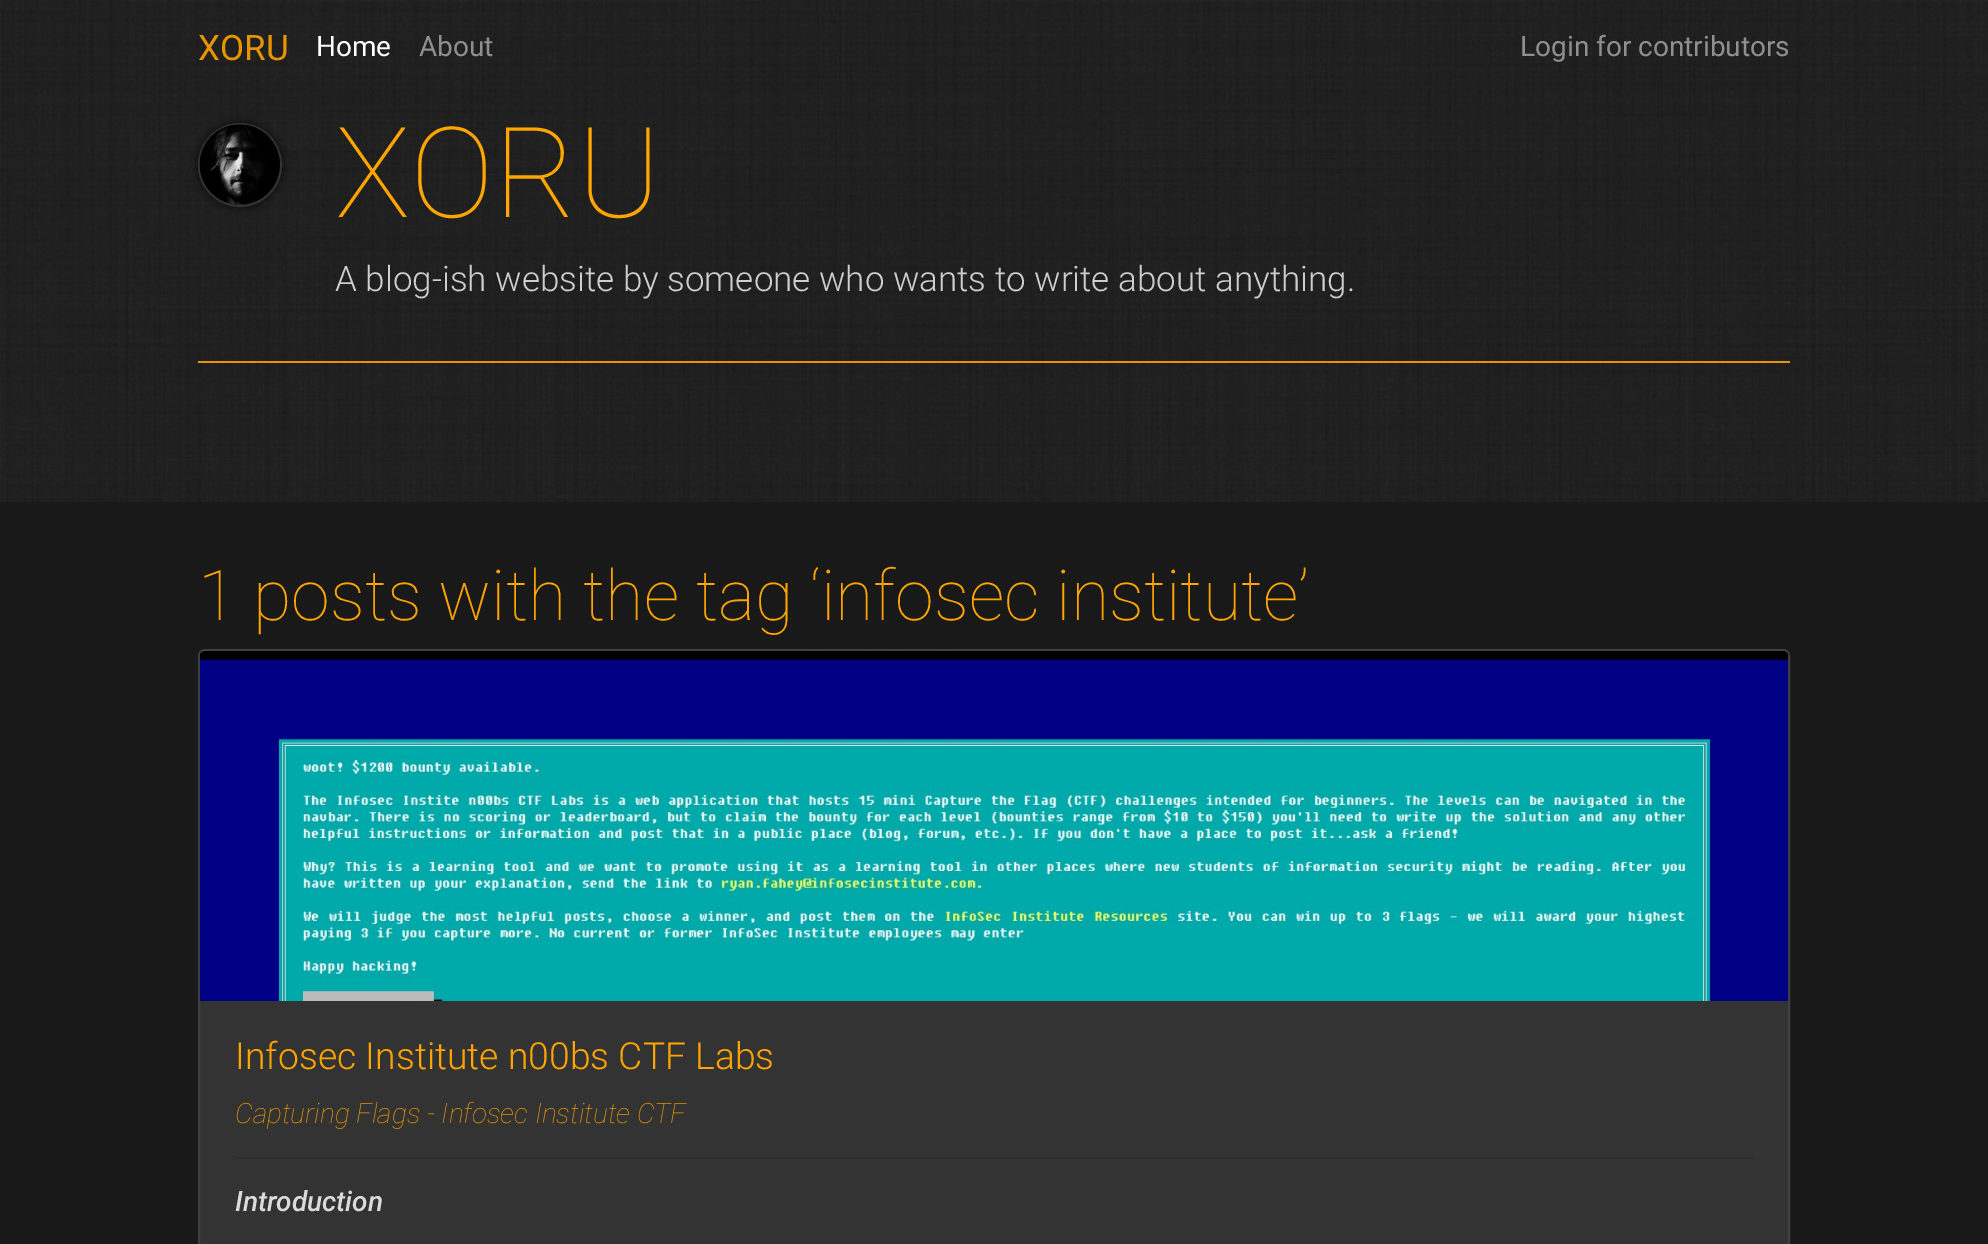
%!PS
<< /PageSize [1988 1244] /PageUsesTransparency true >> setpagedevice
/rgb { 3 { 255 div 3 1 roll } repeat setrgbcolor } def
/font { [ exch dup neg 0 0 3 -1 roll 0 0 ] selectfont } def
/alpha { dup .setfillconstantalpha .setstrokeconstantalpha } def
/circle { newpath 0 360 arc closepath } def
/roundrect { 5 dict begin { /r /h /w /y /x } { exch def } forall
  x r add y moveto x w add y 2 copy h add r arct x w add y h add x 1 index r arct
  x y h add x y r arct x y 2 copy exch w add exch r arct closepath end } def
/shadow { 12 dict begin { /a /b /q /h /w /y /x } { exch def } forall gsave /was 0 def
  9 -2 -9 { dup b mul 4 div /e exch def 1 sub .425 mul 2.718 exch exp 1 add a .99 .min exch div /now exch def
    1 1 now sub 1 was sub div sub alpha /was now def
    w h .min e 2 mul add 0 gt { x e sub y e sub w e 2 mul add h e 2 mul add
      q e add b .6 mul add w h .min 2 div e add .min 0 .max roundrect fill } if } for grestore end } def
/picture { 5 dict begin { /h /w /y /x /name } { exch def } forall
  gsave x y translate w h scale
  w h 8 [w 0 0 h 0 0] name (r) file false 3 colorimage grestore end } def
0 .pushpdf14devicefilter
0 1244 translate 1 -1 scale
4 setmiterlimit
25 25 25 rgb
0 0 1988 1244 rectfill
(img/1.rgb) 0 0 1988 502 picture
0 0 0 rgb
198 123 84 84 42 4.5 0.7 shadow
51 51 51 rgb
2 setlinewidth
240 165 41 circle stroke
(img/2.rgb) 199 124 81 81 picture
230 149 0 rgb
198 361 1592 2 rectfill
51 51 51 rgb
199 650 1590 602 6 roundrect gsave fill grestore
64 64 64 rgb
stroke
(img/3.rgb) 199 651 1590 350 picture
46 46 46 rgb
235 1157 1519 2 rectfill
/Roboto-Regular 35 font
230 149 0 rgb
198 60 moveto (XORU) show
/Roboto-Regular 28 font
255 255 255 rgb
316 56 moveto (Home) show
143 143 143 rgb
419 56 moveto (About) show
1520 56 moveto (Login for contributors) show
/Roboto-Thin 126 font
255 165 0 rgb
335 217 moveto (XORU) show
/Roboto-Light 35 font
206 206 206 rgb
335 291 moveto (A blog-ish website by someone who wants to write about anything.) show
/Roboto-Thin 70 font
255 165 0 rgb
198 620 moveto (1 posts with the tag ‘infosec institute’) show
/Roboto-Light 37.3 font
235 1069 moveto (Infosec Institute n00bs CTF Labs) show
/Roboto-ThinItalic 28 font
230 149 0 rgb
235 1123 moveto (Capturing Flags - Infosec Institute CTF) show
/Roboto-MediumItalic 28 font
219 219 219 rgb
235 1211 moveto (Introduction) show
.poppdf14devicefilter showpage
